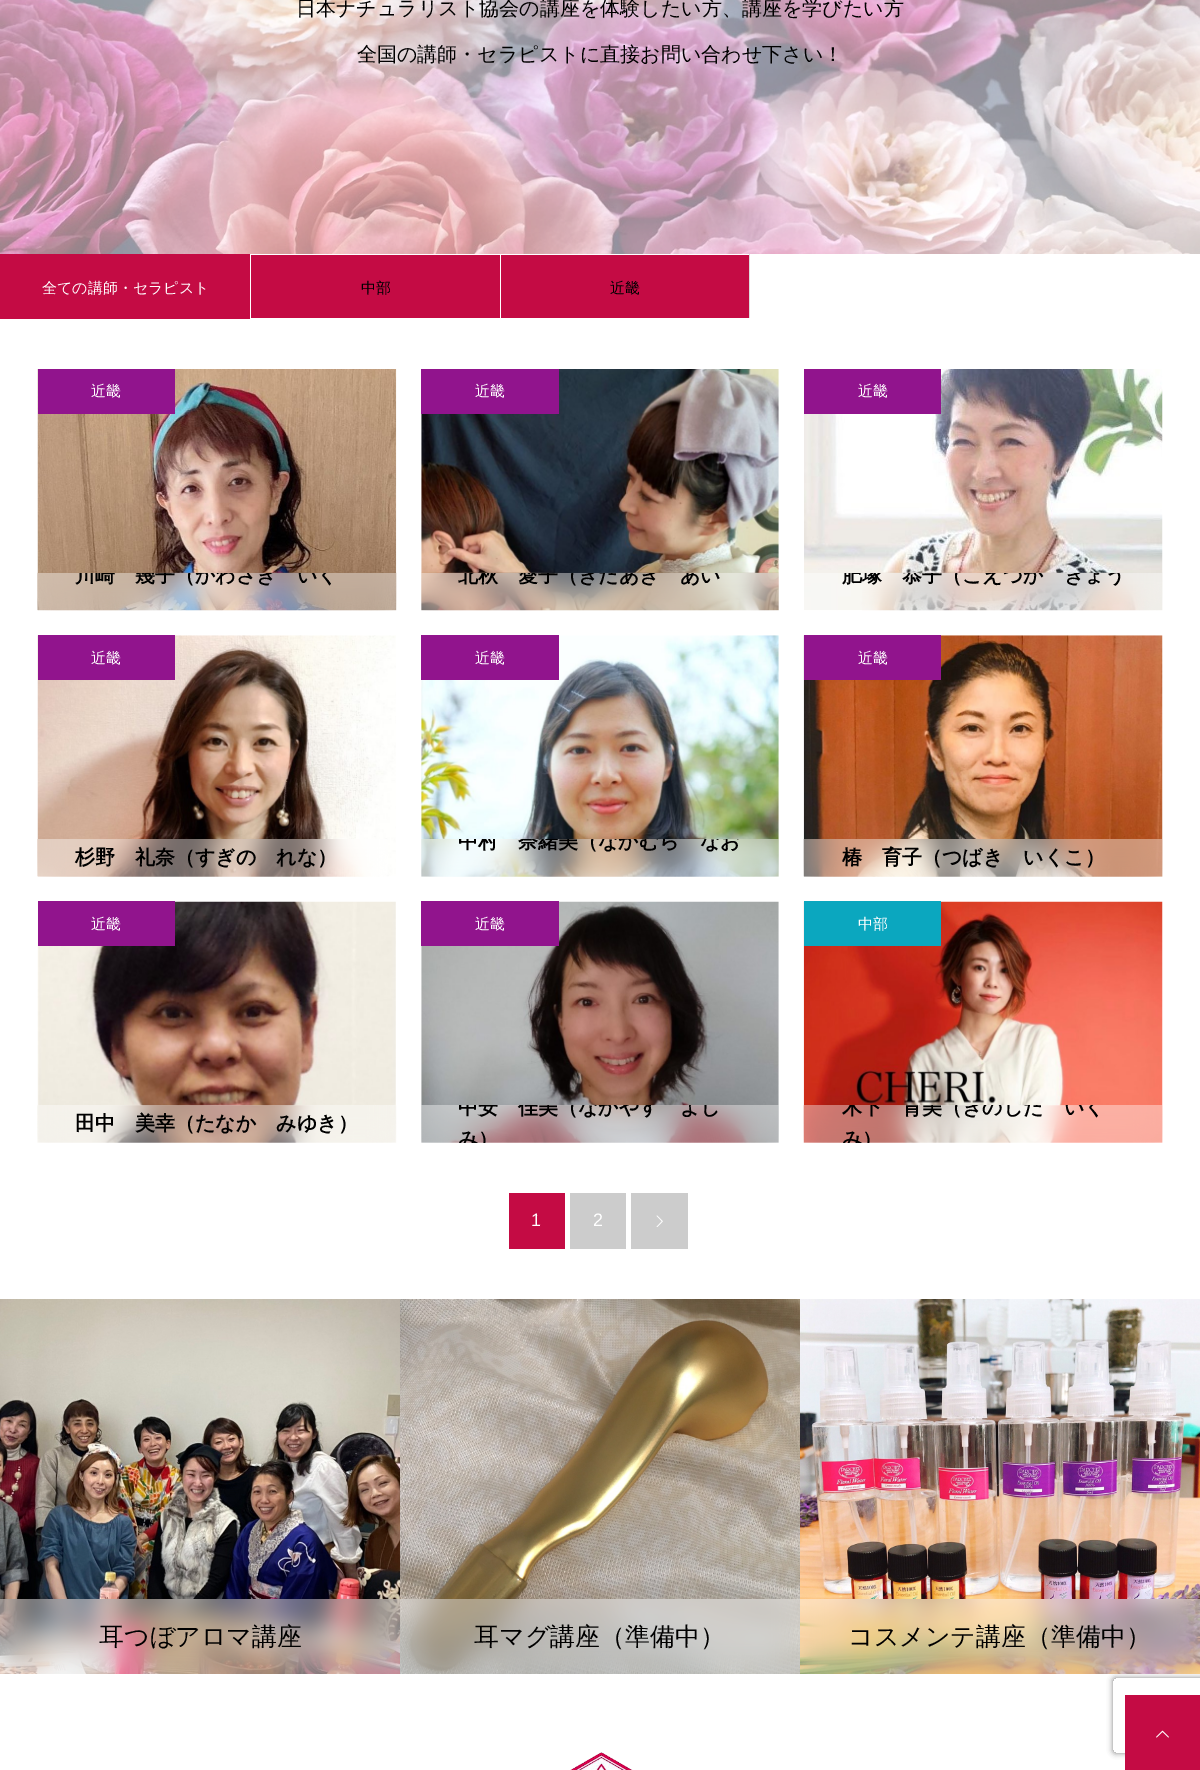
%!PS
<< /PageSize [1200 1770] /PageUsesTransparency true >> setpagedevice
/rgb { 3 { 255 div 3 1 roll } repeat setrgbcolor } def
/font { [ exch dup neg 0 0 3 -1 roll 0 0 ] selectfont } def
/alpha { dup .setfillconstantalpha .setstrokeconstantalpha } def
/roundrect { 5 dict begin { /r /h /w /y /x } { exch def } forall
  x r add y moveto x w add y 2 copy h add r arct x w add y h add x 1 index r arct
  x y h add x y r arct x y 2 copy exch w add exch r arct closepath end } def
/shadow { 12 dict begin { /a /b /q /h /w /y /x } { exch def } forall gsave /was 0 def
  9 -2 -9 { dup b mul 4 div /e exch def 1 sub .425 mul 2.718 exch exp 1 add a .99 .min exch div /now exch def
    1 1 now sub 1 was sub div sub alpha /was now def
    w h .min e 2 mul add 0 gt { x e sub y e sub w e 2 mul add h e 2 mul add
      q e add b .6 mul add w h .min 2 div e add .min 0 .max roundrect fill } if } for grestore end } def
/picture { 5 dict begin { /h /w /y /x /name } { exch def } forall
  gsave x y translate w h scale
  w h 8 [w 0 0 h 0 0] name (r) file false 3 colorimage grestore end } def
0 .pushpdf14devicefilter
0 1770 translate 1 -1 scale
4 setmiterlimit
255 255 255 rgb
0 0 1200 1770 rectfill
(img/1.rgb) 0 0 1200 254 picture
[
  [0 254 250 65 196 11 68]
  [251 255 249 63 196 11 68]
  [501 255 248 63 196 11 68]
  [749 254 1 65 221 221 221]
  [749 318 1 1 255 255 255]
] { aload pop rgb rectfill } forall
(img/2.rgb) 37 369 360 242 picture
145 20 141 rgb
38 369 137 45 rectfill
(img/3.rgb) 37 572 360 39 picture
0.4 alpha
255 255 255 rgb
38 573 358 37 rectfill
1 alpha
(img/4.rgb) 421 369 358 242 picture
145 20 141 rgb
421 369 138 45 rectfill
(img/5.rgb) 421 572 358 39 picture
0.4 alpha
255 255 255 rgb
421 573 358 37 rectfill
1 alpha
(img/6.rgb) 804 369 359 242 picture
145 20 141 rgb
804 369 137 45 rectfill
(img/7.rgb) 862 572 301 39 picture
0.4 alpha
255 255 255 rgb
804 573 359 37 rectfill
1 alpha
(img/8.rgb) 37 635 359 242 picture
145 20 141 rgb
38 635 137 45 rectfill
(img/9.rgb) 37 839 350 38 picture
0.4 alpha
255 255 255 rgb
38 839 350 37 rectfill
1 alpha
(img/10.rgb) 421 635 358 242 picture
145 20 141 rgb
421 635 138 45 rectfill
(img/11.rgb) 421 839 358 38 picture
0.4 alpha
255 255 255 rgb
421 839 358 37 rectfill
1 alpha
(img/12.rgb) 803 635 360 242 picture
145 20 141 rgb
804 635 137 45 rectfill
(img/13.rgb) 803 839 360 38 picture
0.4 alpha
255 255 255 rgb
804 839 359 37 rectfill
1 alpha
(img/14.rgb) 37 901 359 242 picture
145 20 141 rgb
38 901 137 45 rectfill
(img/15.rgb) 37 1105 360 38 picture
0.4 alpha
255 255 255 rgb
38 1105 358 38 rectfill
1 alpha
(img/16.rgb) 421 901 358 242 picture
145 20 141 rgb
421 901 138 45 rectfill
(img/17.rgb) 421 1105 358 38 picture
0.4 alpha
255 255 255 rgb
421 1105 358 38 rectfill
1 alpha
(img/18.rgb) 803 901 360 242 picture
11 167 191 rgb
804 901 137 45 rectfill
(img/19.rgb) 803 1105 360 38 picture
0.4 alpha
[
  [804 1105 359 38 255 255 255]
] { aload pop rgb rectfill } forall
1 alpha
[
  [509 1193 56 56 196 11 68]
  [570 1193 56 56 204 204 204]
  [631 1193 57 56 204 204 204]
] { aload pop rgb rectfill } forall
(img/20.rgb) 656 1215 7 12 picture
(img/21.rgb) 0 1299 400 375 picture
(img/22.rgb) 0 1599 400 75 picture
0.4 alpha
255 255 255 rgb
0 1599 400 75 rectfill
1 alpha
(img/23.rgb) 400 1299 400 375 picture
(img/24.rgb) 400 1599 400 75 picture
0.4 alpha
400 1599 400 75 rectfill
gsave
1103 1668 moveto 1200 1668 lineto 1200 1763 lineto 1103 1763 lineto closepath 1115.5 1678 moveto 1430.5 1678 lineto 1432 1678 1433 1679 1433 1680.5 curveto 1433 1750.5 lineto 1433 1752 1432 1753 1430.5 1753 curveto 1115.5 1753 lineto 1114 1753 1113 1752 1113 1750.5 curveto 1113 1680.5 lineto 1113 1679 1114 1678 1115.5 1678 curveto closepath eoclip newpath
1 alpha
128 128 128 rgb
1113 1678 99 75 2.5 3 1 shadow
grestore
1 alpha
(img/25.rgb) 800 1299 400 375 picture
(img/26.rgb) 800 1599 400 75 picture
0.4 alpha
800 1599 400 75 rectfill
1 alpha
(img/27.rgb) 570 1752 63 18 picture
196 11 68 rgb
1125 1695 75 75 rectfill
(img/28.rgb) 1156 1730 13 8 picture
/WenQuanYiZenHei-Medium 20 font
0 0 0 rgb
296 15 moveto (日本ナチュラリスト協会の講座を体験したい方、講座を学びたい方) show
357 61 moveto (全国の講師・セラピストに直接お問い合わせ下さい！) show
/WenQuanYiZenHei-Medium 15 font
255 255 255 rgb
42 293 moveto (全ての講師・セラピスト) show
0 0 0 rgb
361 293 moveto (中部) show
610 293 moveto (近畿) show
255 255 255 rgb
91 396 moveto (近畿) show
gsave
38 573 358 37 rectclip
/WenQuanYiZenHei-Bold 20 font
0 0 0 rgb
75 582 moveto (川崎　幾子（かわさき　いく) show
grestore
475 396 moveto (近畿) show
gsave
421 573 358 37 rectclip
/WenQuanYiZenHei-Bold 20 font
0 0 0 rgb
458 582 moveto (北秋　愛子（きたあき　あい) show
grestore
858 396 moveto (近畿) show
gsave
804 573 359 37 rectclip
/WenQuanYiZenHei-Bold 20 font
0 0 0 rgb
842 582 moveto (肥塚　恭子（こえづか　きょう) show
grestore
91 663 moveto (近畿) show
/WenQuanYiZenHei-Bold 20 font
0 0 0 rgb
75 864 moveto (杉野　礼奈（すぎの　れな）) show
/WenQuanYiZenHei-Medium 15 font
255 255 255 rgb
475 663 moveto (近畿) show
gsave
421 839 358 37 rectclip
/WenQuanYiZenHei-Bold 20 font
0 0 0 rgb
458 848 moveto (中村　奈緒美（なかむら　なお) show
grestore
858 663 moveto (近畿) show
/WenQuanYiZenHei-Bold 20 font
0 0 0 rgb
842 864 moveto (椿　育子（つばき　いくこ）) show
/WenQuanYiZenHei-Medium 15 font
255 255 255 rgb
91 929 moveto (近畿) show
/WenQuanYiZenHei-Bold 20 font
0 0 0 rgb
75 1130 moveto (田中　美幸（たなか　みゆき）) show
/WenQuanYiZenHei-Medium 15 font
255 255 255 rgb
475 929 moveto (近畿) show
gsave
421 1105 358 38 rectclip
/WenQuanYiZenHei-Bold 20 font
0 0 0 rgb
458 1114 moveto (中安　佳美（なかやす　よし) show
458 1146 moveto (み）) show
grestore
858 929 moveto (中部) show
gsave
804 1105 359 38 rectclip
/WenQuanYiZenHei-Bold 20 font
0 0 0 rgb
842 1114 moveto (木下　育美（きのした　いく) show
842 1146 moveto (み）) show
grestore
/LiberationSans-Regular 18 font
531 1226 moveto (1) show
593 1226 moveto (2) show
/WenQuanYiZenHei-Medium 25 font
0 0 0 rgb
[
  [(耳つぼアロマ講座) 99 1645]
  [(耳マグ講座（準備中）) 474 1645]
  [(コスメンテ講座（準備中）) 848 1645]
] { aload pop moveto show } forall
.poppdf14devicefilter showpage
